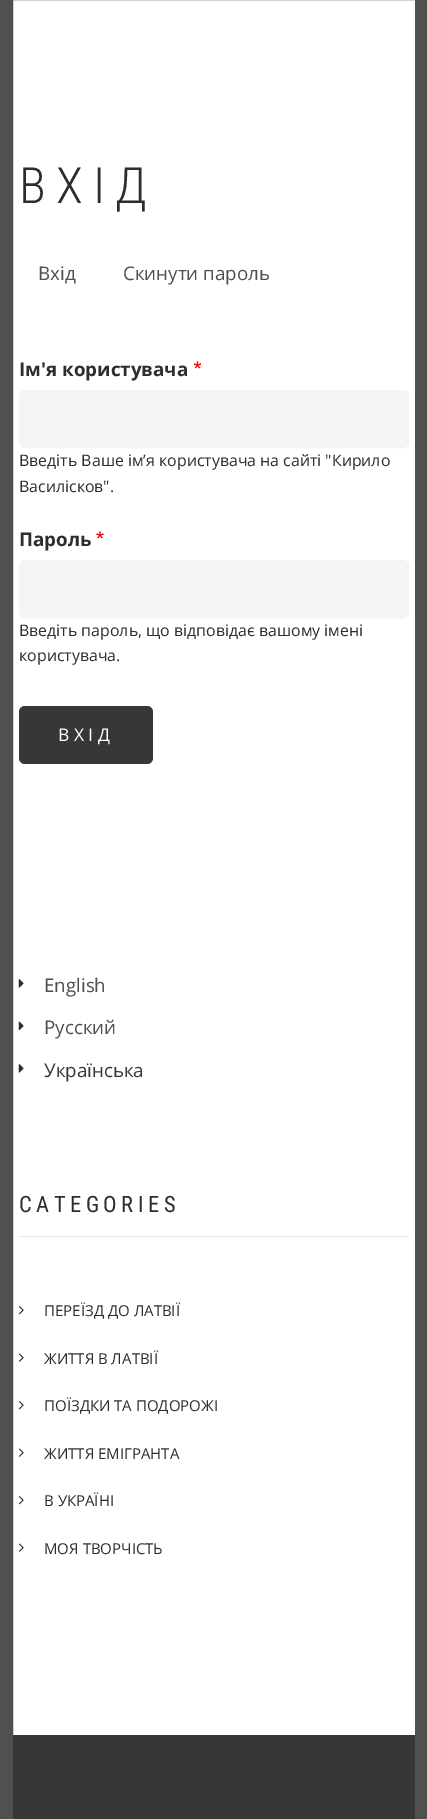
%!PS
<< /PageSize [427 1819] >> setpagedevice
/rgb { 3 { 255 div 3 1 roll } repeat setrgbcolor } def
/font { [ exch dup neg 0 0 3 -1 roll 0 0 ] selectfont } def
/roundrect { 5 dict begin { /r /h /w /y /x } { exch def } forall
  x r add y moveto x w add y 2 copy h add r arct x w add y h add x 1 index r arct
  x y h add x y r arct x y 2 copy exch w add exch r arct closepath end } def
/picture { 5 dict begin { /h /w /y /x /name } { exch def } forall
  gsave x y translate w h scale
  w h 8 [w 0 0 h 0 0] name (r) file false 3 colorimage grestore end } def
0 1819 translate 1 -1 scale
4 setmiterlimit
255 255 255 rgb
0 0 427 1819 rectfill
80 80 80 rgb
13 setlinewidth
6.5 -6.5 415 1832 rectstroke
(img/1.rgb) 194 361 7 8 picture
244 244 244 rgb
19.5 390.5 389 57 5.5 roundrect gsave fill grestore
1 setlinewidth
stroke
(img/2.rgb) 96 531 8 8 picture
19.5 560.5 389 57 5.5 roundrect gsave fill grestore
stroke
55 55 55 rgb
19 706 134 58 6 roundrect fill
(img/3.rgb) 18 979 6 9 picture
(img/4.rgb) 18 1021 6 10 picture
(img/3.rgb) 18 1064 6 9 picture
231 231 231 rgb
19 1236 390 1 rectfill
(img/5.rgb) 18 1306 6 9 picture
(img/6.rgb) 18 1353 6 9 picture
(img/5.rgb) 18 1401 6 9 picture
(img/6.rgb) 18 1448 6 9 picture
(img/5.rgb) 18 1496 6 9 picture
(img/6.rgb) 18 1543 6 9 picture
55 55 55 rgb
13 1735 402 84 rectfill
/RobotoCondensed-Light 50 font
45 45 45 rgb
19 203 moveto 10 0 (ВХІД) ashow
/OpenSans-Regular 18.75 font
80 80 80 rgb
38 280 moveto (Вхід) show
123 280 moveto (Скинути пароль) show
/OpenSans-Bold 18.75 font
45 45 45 rgb
19 376 moveto (Ім'я користувача) show
/OpenSans-Regular 15.9 font
19 466 moveto (Введіть Ваше ім’я користувача на сайті "Кирило) show
19 492 moveto (Василісков".) show
/OpenSans-Bold 18.75 font
19 546 moveto (Пароль) show
/OpenSans-Regular 15.9 font
19 636 moveto (Введіть пароль, що відповідає вашому імені) show
19 661 moveto (користувача.) show
/OpenSans-Regular 17.5 font
255 255 255 rgb
58 741 moveto 4.5 0 (ВХІД) ashow
/OpenSans-Regular 18.75 font
80 80 80 rgb
44 992 moveto (English) show
44 1034 moveto (Русский) show
55 55 55 rgb
44 1077 moveto (Українська) show
/RobotoCondensed-Regular 22.5 font
45 45 45 rgb
19 1212 moveto 4.5 0 (CATEGORIES) ashow
/OpenSans-Regular 15 font
[
  [(ПЕРЕЇЗД ДО ЛАТВІЇ) 44 1316]
  [(ЖИТТЯ В ЛАТВІЇ) 44 1364]
  [(ПОЇЗДКИ ТА ПОДОРОЖІ) 44 1411]
  [(ЖИТТЯ ЕМІГРАНТА) 44 1459]
  [(В УКРАЇНІ) 44 1506]
  [(МОЯ ТВОРЧІСТЬ) 44 1554]
] { aload pop moveto show } forall
showpage
